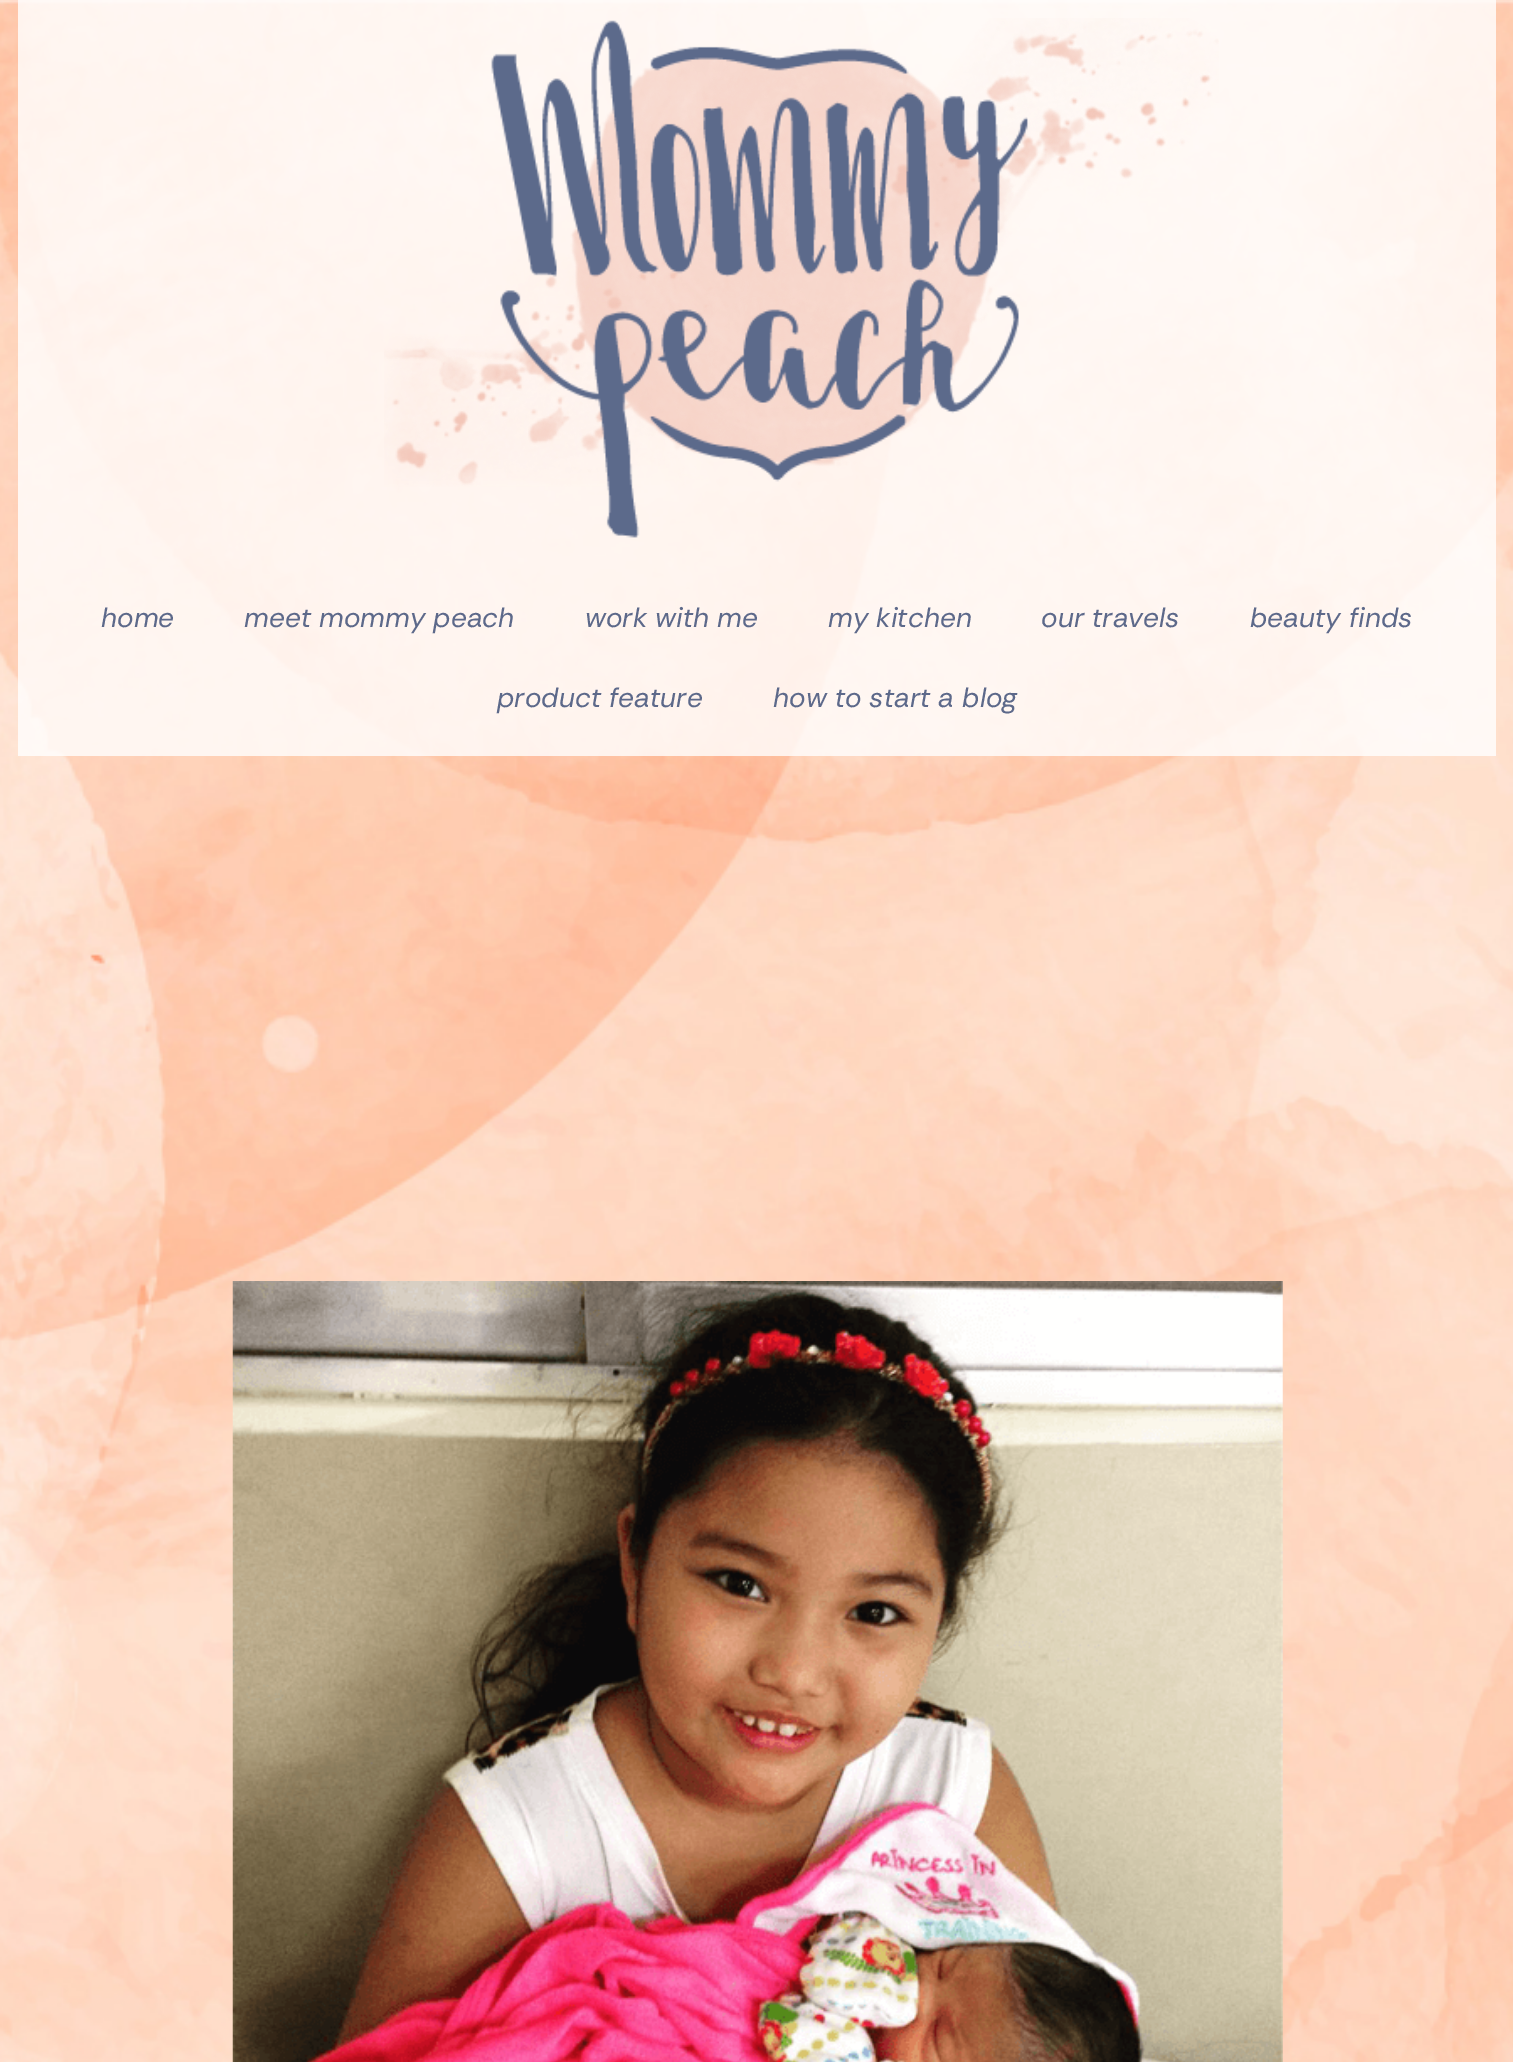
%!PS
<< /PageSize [1513 2062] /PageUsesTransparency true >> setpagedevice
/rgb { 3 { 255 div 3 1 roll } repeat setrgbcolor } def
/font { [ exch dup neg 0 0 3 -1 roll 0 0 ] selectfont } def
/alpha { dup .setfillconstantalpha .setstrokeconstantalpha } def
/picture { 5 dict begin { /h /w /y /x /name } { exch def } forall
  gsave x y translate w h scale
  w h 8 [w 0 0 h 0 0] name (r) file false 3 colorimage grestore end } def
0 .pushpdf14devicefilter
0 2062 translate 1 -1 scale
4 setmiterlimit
255 255 255 rgb
0 0 1513 2062 rectfill
(img/1.rgb) 0 0 1513 2062 picture
0.8 alpha
18 0 1478 756 rectfill
1 alpha
(img/2.rgb) 384 18 835 520 picture
(img/3.rgb) 232 1281 1051 781 picture
/RethinkSans-Italic 28 font
93 105 138 rgb
[
  [(home) 101 627]
  [(meet mommy peach) 244 627]
  [(work with me) 585 627]
  [(my kitchen) 828 627]
  [(our travels) 1041 627]
  [(beauty finds) 1250 627]
  [(product feature) 497 707]
  [(how to start a blog) 773 707]
] { aload pop moveto show } forall
.poppdf14devicefilter showpage
